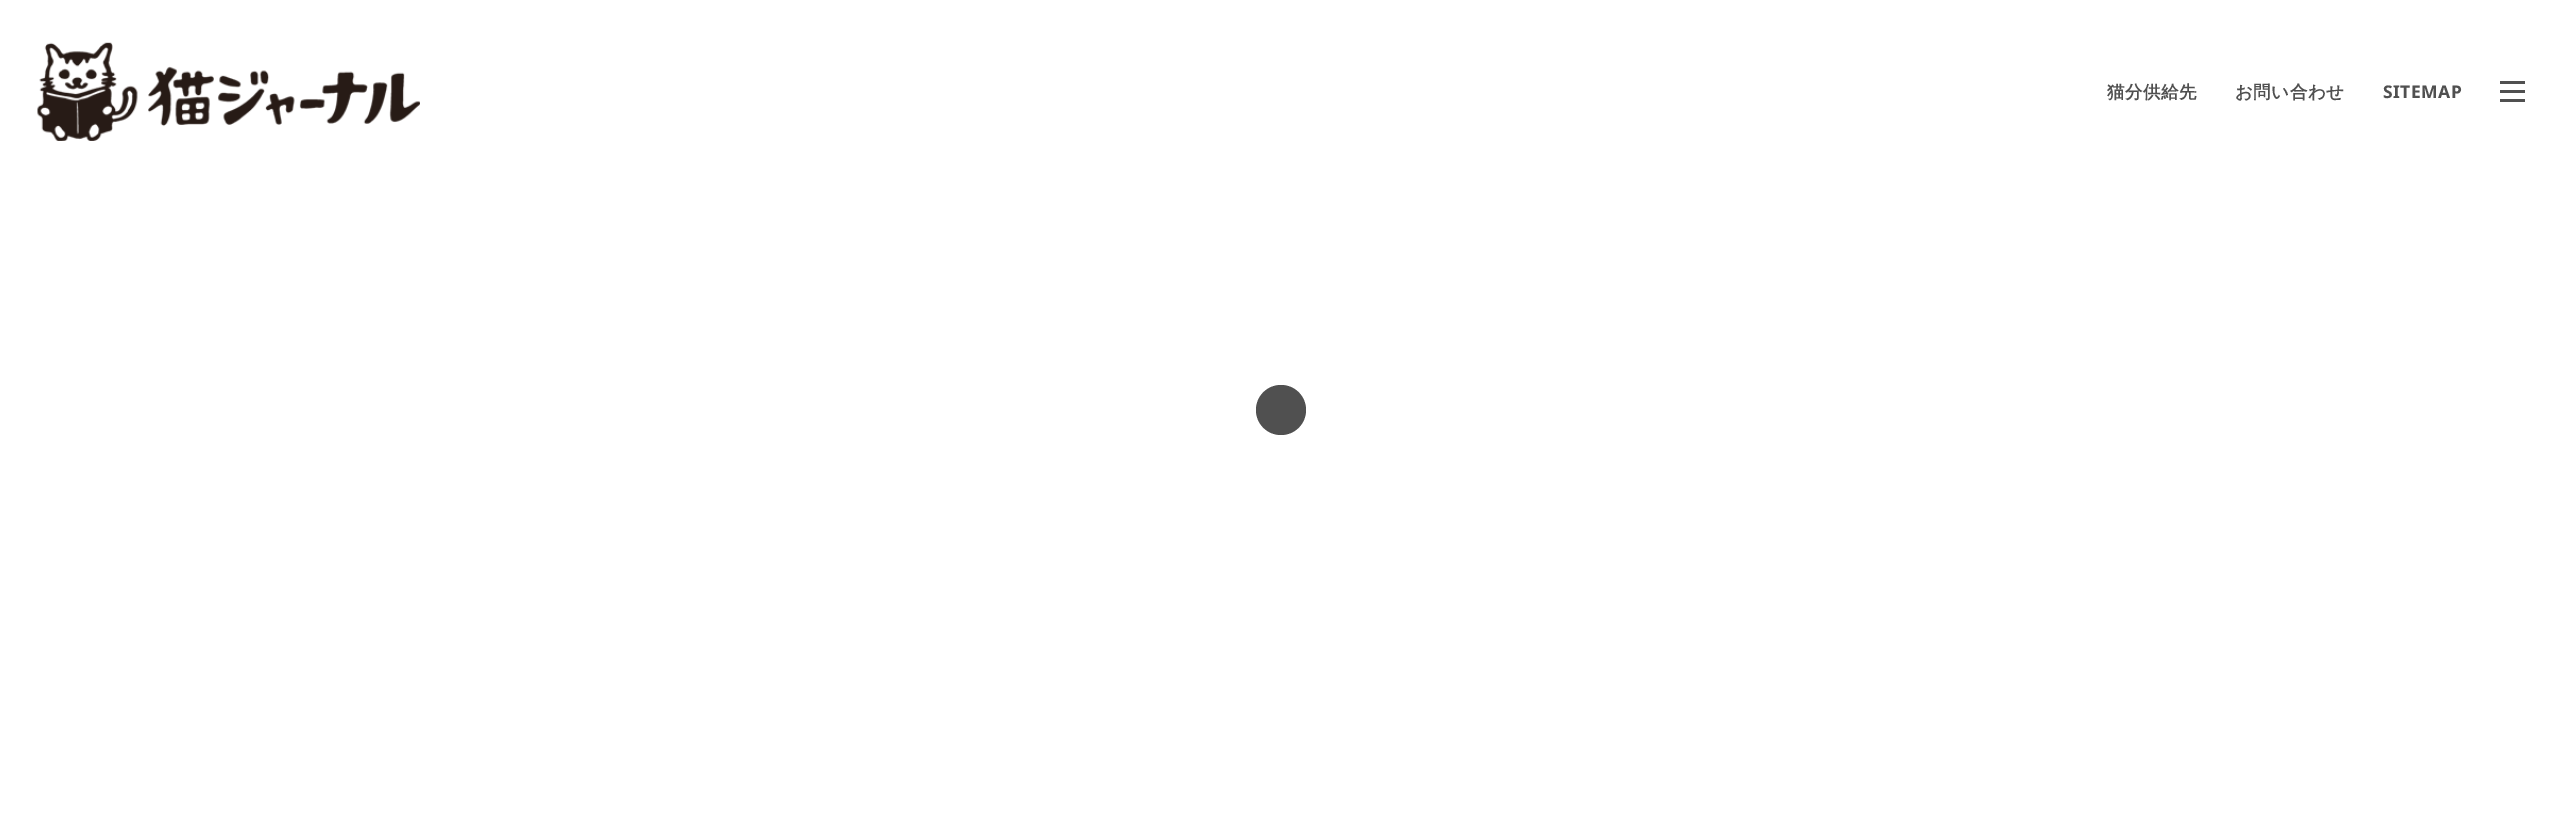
%!PS
<< /PageSize [2562 819] >> setpagedevice
/rgb { 3 { 255 div 3 1 roll } repeat setrgbcolor } def
/font { [ exch dup neg 0 0 3 -1 roll 0 0 ] selectfont } def
/circle { newpath 0 360 arc closepath } def
/picture { 5 dict begin { /h /w /y /x /name } { exch def } forall
  gsave x y translate w h scale
  w h 8 [w 0 0 h 0 0] name (r) file false 3 colorimage grestore end } def
0 819 translate 1 -1 scale
4 setmiterlimit
255 255 255 rgb
0 0 2562 819 rectfill
(img/1.rgb) 37 42 383 99 picture
[
  [2500 90 25 3 80 80 80]
  [2500 81 25 3 80 80 80]
  [2500 99 25 3 80 80 80]
] { aload pop rgb rectfill } forall
1281 410 25 circle fill
/WenQuanYiZenHei-Bold 17.5 font
2107 98 moveto 0.5 0 (猫分供給先) ashow
2235 98 moveto 0.5 0 (お問い合わせ) ashow
/NotoSans-Bold 17.5 font
2383 98 moveto 0.5 0 (SITEMAP) ashow
showpage
